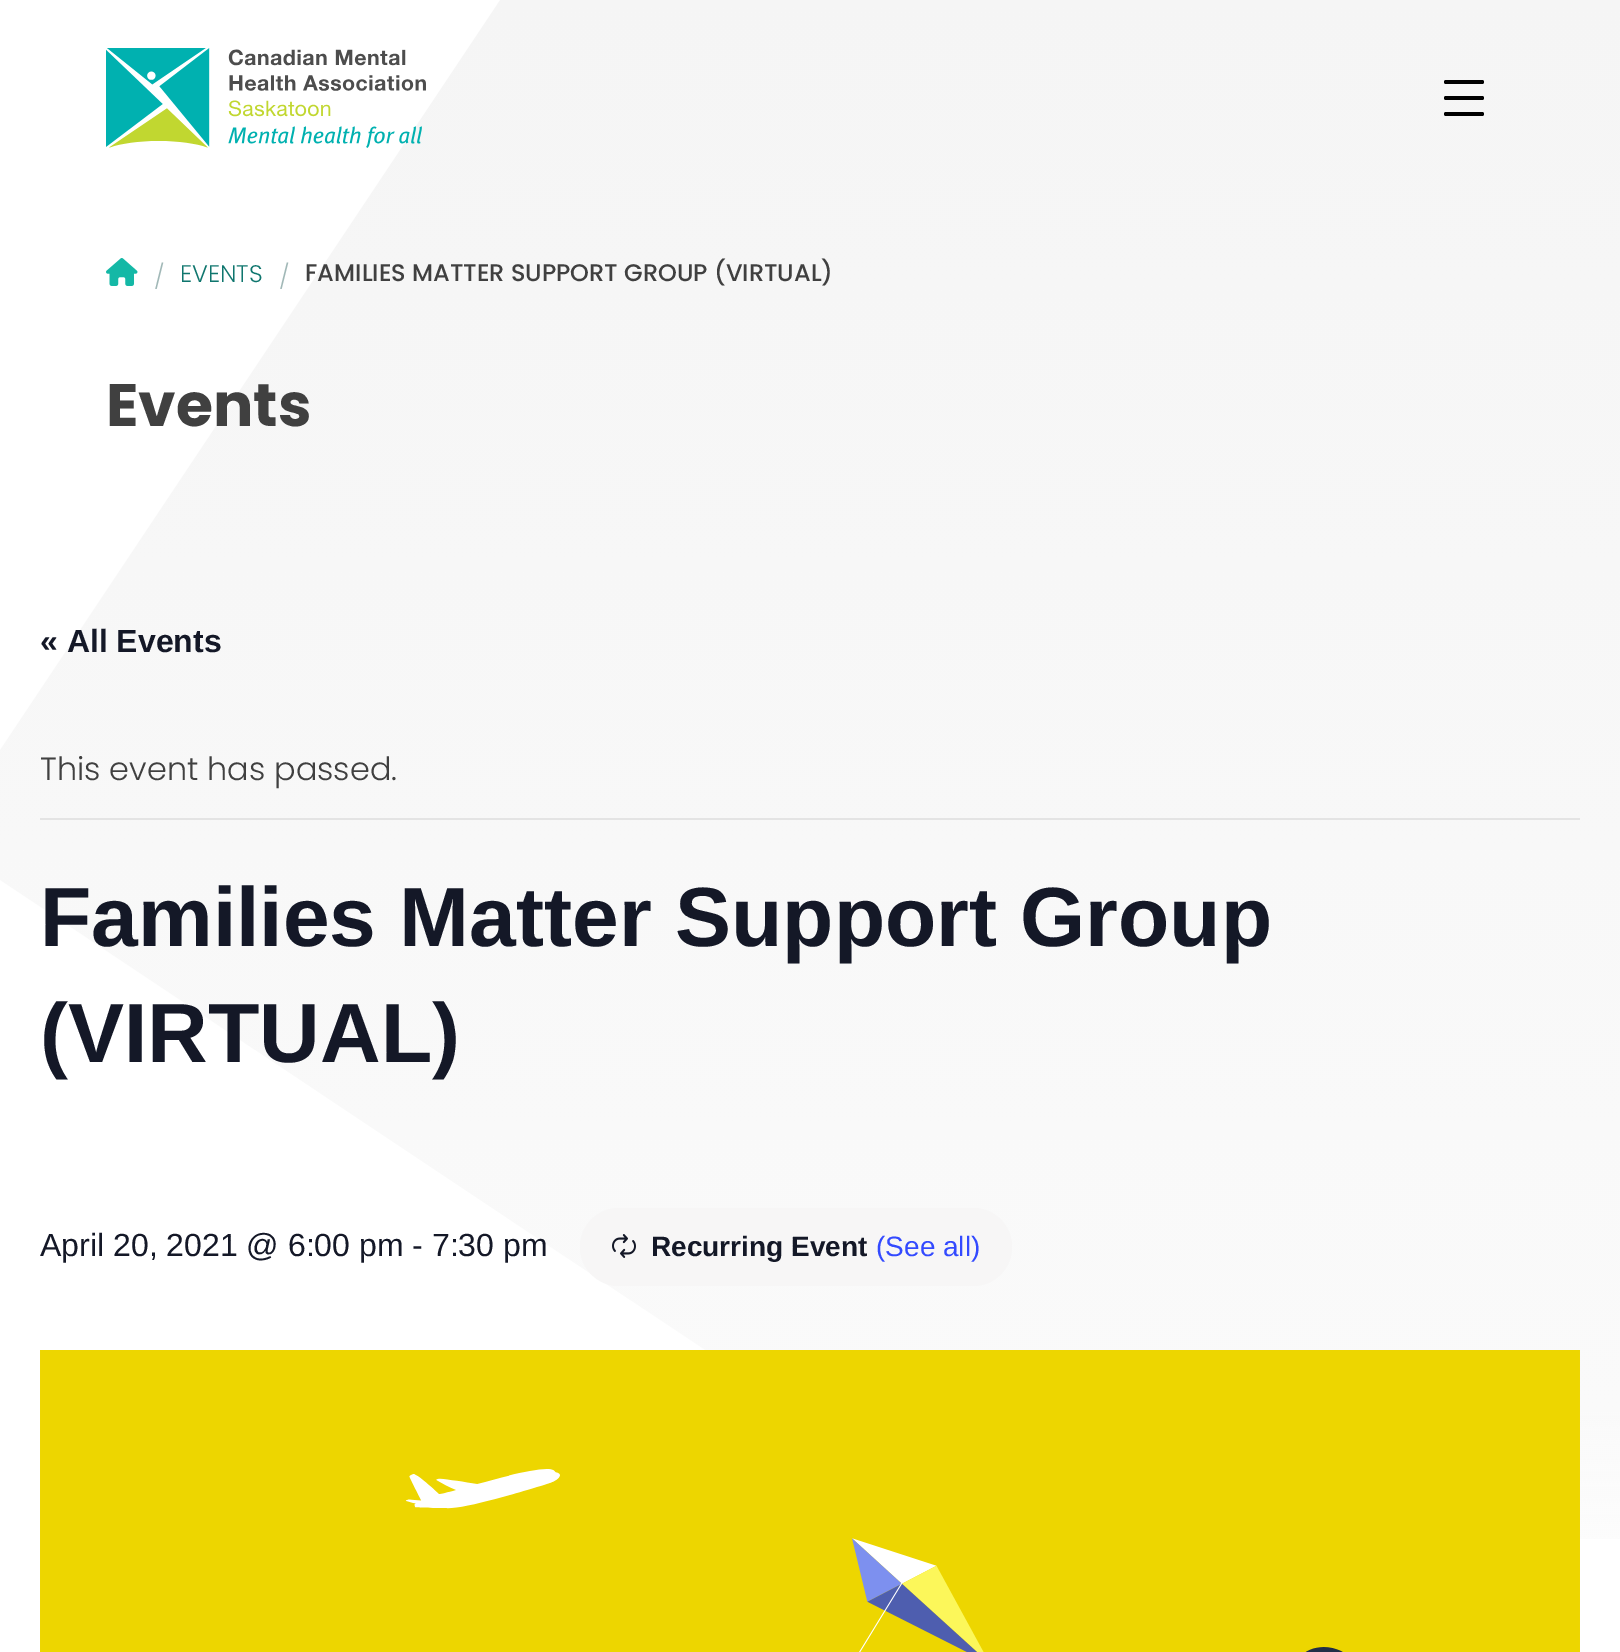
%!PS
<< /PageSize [1620 1652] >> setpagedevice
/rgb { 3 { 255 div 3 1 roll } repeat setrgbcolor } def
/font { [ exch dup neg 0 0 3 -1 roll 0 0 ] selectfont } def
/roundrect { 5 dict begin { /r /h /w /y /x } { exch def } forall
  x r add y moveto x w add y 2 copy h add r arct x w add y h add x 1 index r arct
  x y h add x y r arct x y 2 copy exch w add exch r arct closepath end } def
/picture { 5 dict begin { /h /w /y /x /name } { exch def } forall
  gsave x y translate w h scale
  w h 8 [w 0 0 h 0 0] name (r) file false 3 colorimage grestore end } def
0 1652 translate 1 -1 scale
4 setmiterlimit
255 255 255 rgb
0 0 1620 1652 rectfill
(img/1.rgb) 0 0 1620 1539 picture
(img/2.rgb) 106 48 320 100 picture
0 0 0 rgb
1444 112 40 4 2 roundrect fill
1444 80 40 4 2 roundrect fill
1444 96 40 4 2 roundrect fill
(img/3.rgb) 106 258 32 28 picture
228 228 228 rgb
40 818 1540 2 rectfill
247 246 246 rgb
580 1208 432 78 39 roundrect fill
(img/4.rgb) 612 1234 24 24 picture
(img/5.rgb) 40 1350 1540 302 picture
/Poppins-Light 24 font
161 184 183 rgb
154 285 moveto (/) show
15 118 110 rgb
180 282 moveto (EVENTS) show
161 184 183 rgb
279 285 moveto (/) show
/Poppins-Medium 24 font
64 64 64 rgb
305 281 moveto (FAMILIES MATTER SUPPORT GROUP \(VIRTUAL\)) show
/Poppins-Bold 60 font
106 426 moveto (Events) show
/LiberationSans-Bold 32 font
20 24 39 rgb
40 652 moveto (« All Events) show
/Poppins-Light 32 font
64 64 64 rgb
40 780 moveto (This event has passed.) show
/LiberationSans-Bold 84 font
20 24 39 rgb
40 946 moveto (Families Matter Support Group) show
40 1062 moveto (\(VIRTUAL\)) show
/LiberationSans-Regular 32 font
40 1256 moveto (April 20, 2021 @ 6:00 pm - 7:30 pm) show
/LiberationSans-Bold 28 font
651 1256 moveto (Recurring Event) show
/LiberationSans-Regular 28 font
51 74 255 rgb
876 1256 moveto (\(See all\)) show
showpage
